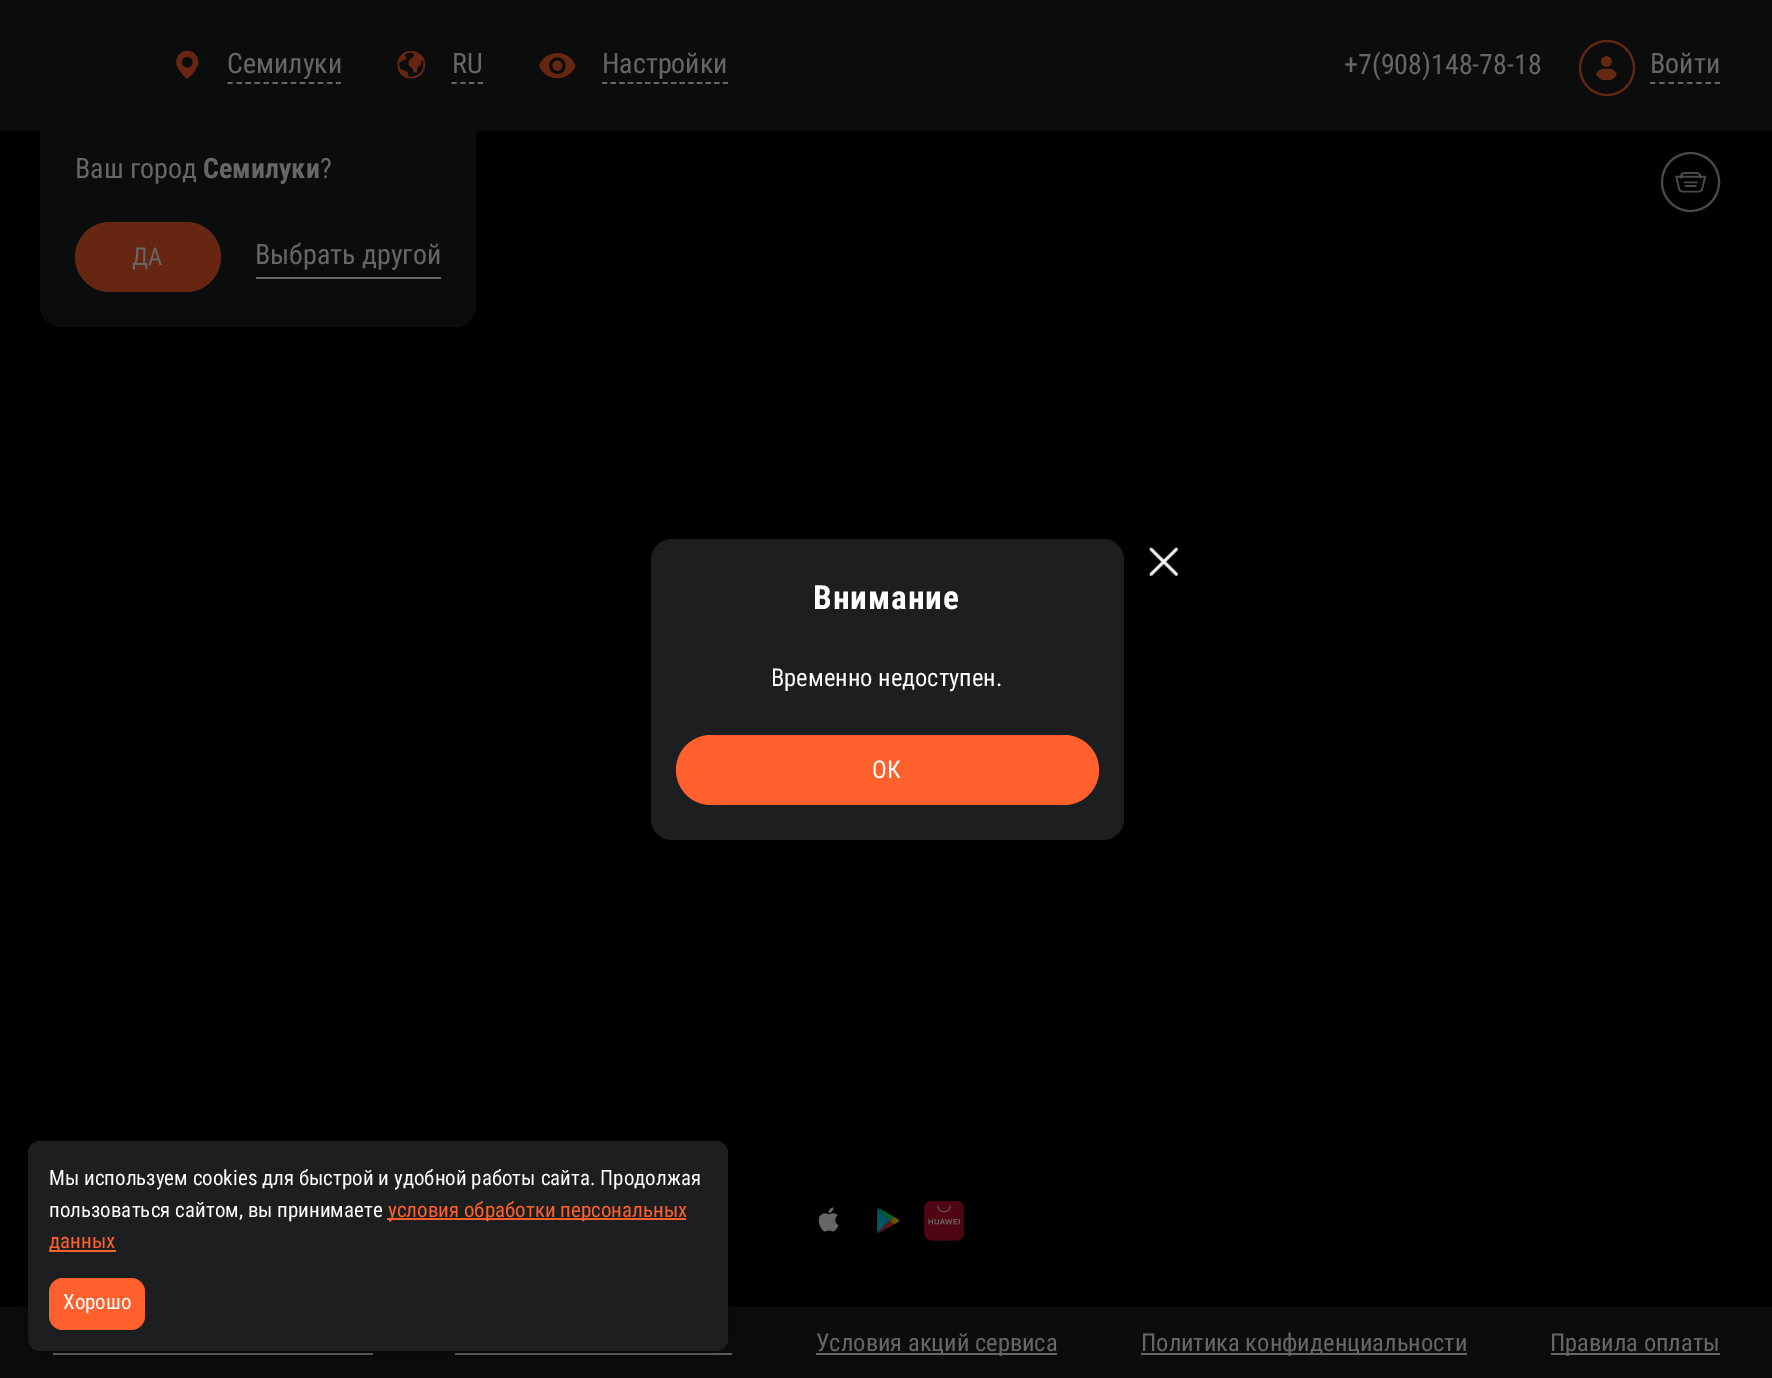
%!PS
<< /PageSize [1772 1378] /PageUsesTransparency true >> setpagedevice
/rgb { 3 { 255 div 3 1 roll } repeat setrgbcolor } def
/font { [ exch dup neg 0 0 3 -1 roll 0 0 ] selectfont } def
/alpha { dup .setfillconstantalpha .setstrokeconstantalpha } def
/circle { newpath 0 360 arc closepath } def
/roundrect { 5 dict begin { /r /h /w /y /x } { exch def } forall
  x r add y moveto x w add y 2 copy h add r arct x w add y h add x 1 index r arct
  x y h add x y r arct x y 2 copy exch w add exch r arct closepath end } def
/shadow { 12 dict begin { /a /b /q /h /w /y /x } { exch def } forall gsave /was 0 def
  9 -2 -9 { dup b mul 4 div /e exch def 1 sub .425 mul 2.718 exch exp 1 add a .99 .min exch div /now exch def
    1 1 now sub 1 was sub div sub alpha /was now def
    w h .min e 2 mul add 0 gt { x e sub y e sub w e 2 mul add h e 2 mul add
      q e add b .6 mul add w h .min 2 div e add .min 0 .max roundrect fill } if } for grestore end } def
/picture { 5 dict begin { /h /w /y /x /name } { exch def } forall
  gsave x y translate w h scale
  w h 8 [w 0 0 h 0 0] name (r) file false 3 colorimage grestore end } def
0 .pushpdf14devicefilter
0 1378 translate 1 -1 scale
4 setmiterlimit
0 0 0 rgb
0 0 1772 1378 rectfill
11 12 12 rgb
0 0 1772 131 rectfill
(img/1.rgb) 176 51 23 28 picture
102 102 102 rgb
1.8 setlinewidth
[5.25 3.8] 0 setdash
227.5 83 moveto 341 83 lineto stroke
11 12 12 rgb
40 114 436 213 21 roundrect fill
102 38 18 rgb
75 222 146 70 35 roundrect fill
102 102 102 rgb
256 277 185 2 rectfill
(img/2.rgb) 397 51 28 28 picture
[5.25 3.5] 0 setdash
451.5 83 moveto 483 83 lineto stroke
(img/3.rgb) 539 53 37 26 picture
[5.25 3.38] 0 setdash
602 83 moveto 728 83 lineto stroke
102 38 18 rgb
2 setlinewidth
[] 0 setdash
1607 68 27 circle stroke
(img/4.rgb) 1596 56 21 25 picture
102 102 102 rgb
1.8 setlinewidth
[5.25 4.01] 0 setdash
1650 83 moveto 1720 83 lineto stroke
71 75 76 rgb
2 setlinewidth
[] 0 setdash
1662 153 57 58 28.5 roundrect stroke
(img/5.rgb) 1675 172 32 21 picture
(img/6.rgb) 1149 547 29 29 picture
28 30 31 rgb
651 539 473 301 21 roundrect fill
255 96 44 rgb
676 735 423 70 35 roundrect fill
[
  [0 1307 1772 71 11 12 12]
  [53 1353 320 2 102 102 102]
  [455 1353 277 2 102 102 102]
] { aload pop rgb rectfill } forall
0 0 0 rgb
28 1141 700 210 12 13 0.4 shadow
28 30 31 rgb
28 1141 700 210 12 roundrect fill
255 96 44 rgb
387 1218 299 2 rectfill
49 1250 67 2 rectfill
49 1278 96 52 14 roundrect fill
(img/7.rgb) 818 1207 21 25 picture
(img/8.rgb) 877 1208 23 25 picture
(img/9.rgb) 924 1201 40 40 picture
[
  [816 1353 241 2 102 102 102]
  [1141 1353 326 2 102 102 102]
  [1551 1353 169 2 102 102 102]
] { aload pop rgb rectfill } forall
/RobotoCondensed-Regular 28 font
227 73 moveto (Семилуки) show
75 178 moveto (Ваш город) show
/RobotoCondensed-Bold 28 font
203 178 moveto (Семилуки) show
/RobotoCondensed-Regular 28 font
320 178 moveto (?) show
/RobotoCondensed-Regular 24.5 font
132 265 moveto (ДА) show
/RobotoCondensed-Regular 28 font
[
  [(Выбрать другой) 255 264]
  [(RU) 452 73]
  [(Настройки) 602 73]
  [(+7\(908\)148-78-18) 1344 74]
  [(Войти) 1650 73]
] { aload pop moveto show } forall
/RobotoCondensed-Bold 33.25 font
255 255 255 rgb
813 609 moveto 1 0 (Внимание) ashow
/RobotoCondensed-Regular 24.5 font
771 686 moveto (Временно недоступен.) show
872 778 moveto (ОК) show
/RobotoCondensed-Regular 21 font
49 1185 moveto (Мы используем cookies для быстрой и удобной работы сайта. Продолжая) show
49 1217 moveto (пользоваться сайтом, вы принимаете) show
255 96 44 rgb
388 1217 moveto (условия обработки персональных) show
49 1248 moveto (данных) show
255 255 255 rgb
63 1309 moveto (Хорошо) show
/RobotoCondensed-Regular 24.5 font
102 102 102 rgb
[
  [(Условия акций сервиса) 816 1351]
  [(Политика конфиденциальности) 1141 1351]
  [(Правила оплаты) 1550 1351]
] { aload pop moveto show } forall
.poppdf14devicefilter showpage
